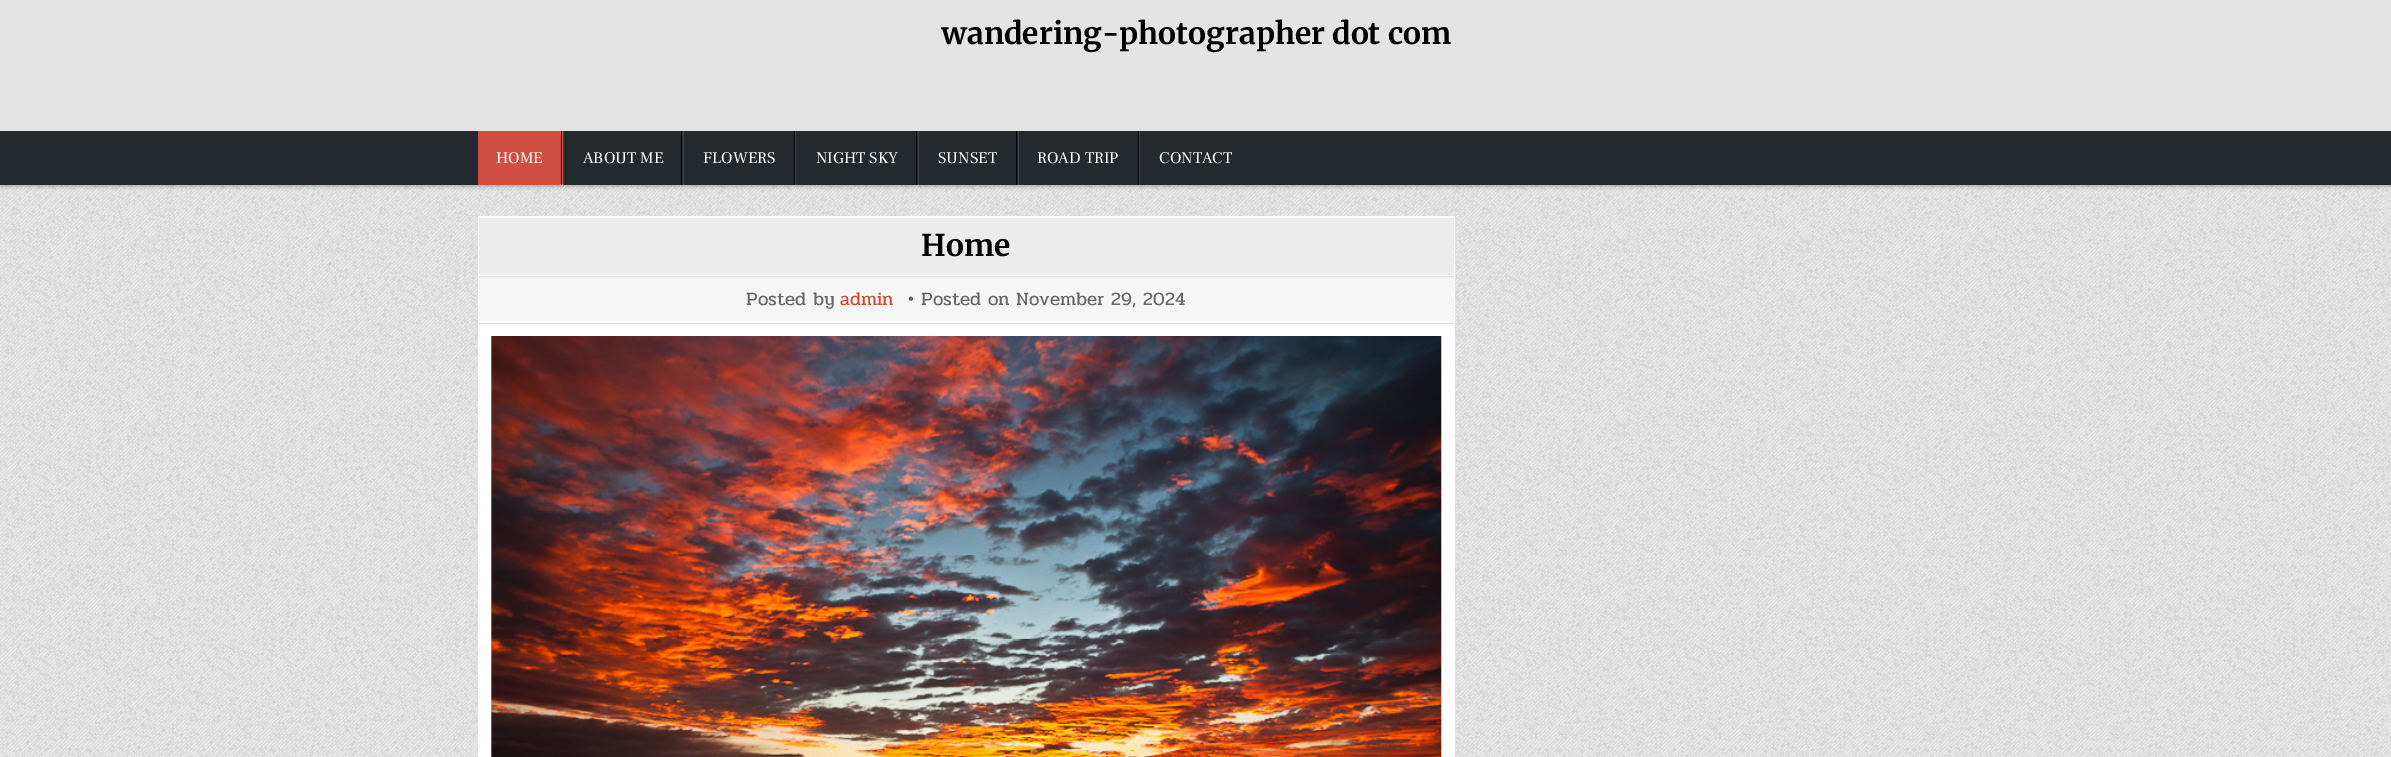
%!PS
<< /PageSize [2391 757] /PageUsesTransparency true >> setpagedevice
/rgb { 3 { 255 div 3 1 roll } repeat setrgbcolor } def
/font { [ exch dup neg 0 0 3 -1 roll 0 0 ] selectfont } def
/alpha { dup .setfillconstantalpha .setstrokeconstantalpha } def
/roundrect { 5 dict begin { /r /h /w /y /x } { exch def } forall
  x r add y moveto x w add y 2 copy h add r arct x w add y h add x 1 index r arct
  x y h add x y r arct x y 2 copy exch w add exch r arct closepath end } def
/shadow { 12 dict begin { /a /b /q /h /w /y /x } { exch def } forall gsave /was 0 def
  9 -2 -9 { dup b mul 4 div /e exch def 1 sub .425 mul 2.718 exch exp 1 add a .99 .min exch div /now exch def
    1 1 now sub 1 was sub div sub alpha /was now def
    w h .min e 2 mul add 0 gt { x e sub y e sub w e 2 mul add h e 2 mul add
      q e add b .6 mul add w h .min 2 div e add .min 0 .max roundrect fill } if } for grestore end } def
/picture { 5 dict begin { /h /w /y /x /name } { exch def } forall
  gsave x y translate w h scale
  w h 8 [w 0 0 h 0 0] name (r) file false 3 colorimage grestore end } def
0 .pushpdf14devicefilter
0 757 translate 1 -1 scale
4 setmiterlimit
255 255 255 rgb
0 0 2391 757 rectfill
(img/1.rgb) 0 185 2391 572 picture
0 0 0 rgb
0 133 2391 53 0 2.5 0.3 shadow
[
  [0 0 2391 131 228 228 228]
  [0 131 2391 54 36 41 45]
  [478 131 85 54 209 79 66]
  [561 131 1 54 0 0 0]
  [681 131 1 54 0 0 0]
  [563 131 1 54 68 68 68]
  [794 131 1 54 0 0 0]
  [683 131 1 54 68 68 68]
  [916 131 1 54 0 0 0]
  [795 131 1 54 68 68 68]
  [1016 131 1 54 0 0 0]
  [918 131 1 54 68 68 68]
  [1138 131 1 54 0 0 0]
  [1018 131 1 54 68 68 68]
  [1139 131 1 54 68 68 68]
  [478 216 977 541 255 255 255]
  [479 218 975 60 236 236 236]
  [479 276 975 1 221 221 221]
  [479 275 975 1 255 255 255]
  [479 278 975 45 246 246 246]
  [479 323 975 1 221 221 221]
  [479 321 975 1 255 255 255]
] { aload pop rgb rectfill } forall
(img/2.rgb) 491 336 951 421 picture
/Merriweather-Bold 30 font
0 0 0 rgb
941 44 moveto (wandering-photographer dot com) show
/FrankRuhlLibre-Regular 16.25 font
255 255 255 rgb
[
  [(HOME) 496 163]
  [(ABOUT ME) 583 163]
  [(FLOWERS) 703 163]
  [(NIGHT SKY) 816 163]
  [(SUNSET) 938 163]
  [(ROAD TRIP) 1037 163]
  [(CONTACT) 1159 163]
] { aload pop moveto show } forall
/Merriweather-Bold 30 font
0 0 0 rgb
921 256 moveto (Home) show
/Pridi-Regular 18.75 font
102 102 102 rgb
746 305 moveto (Posted by) show
201 79 49 rgb
840 305 moveto (admin) show
102 102 102 rgb
908 305 moveto (•) show
921 305 moveto (Posted on November 29, 2024) show
.poppdf14devicefilter showpage
